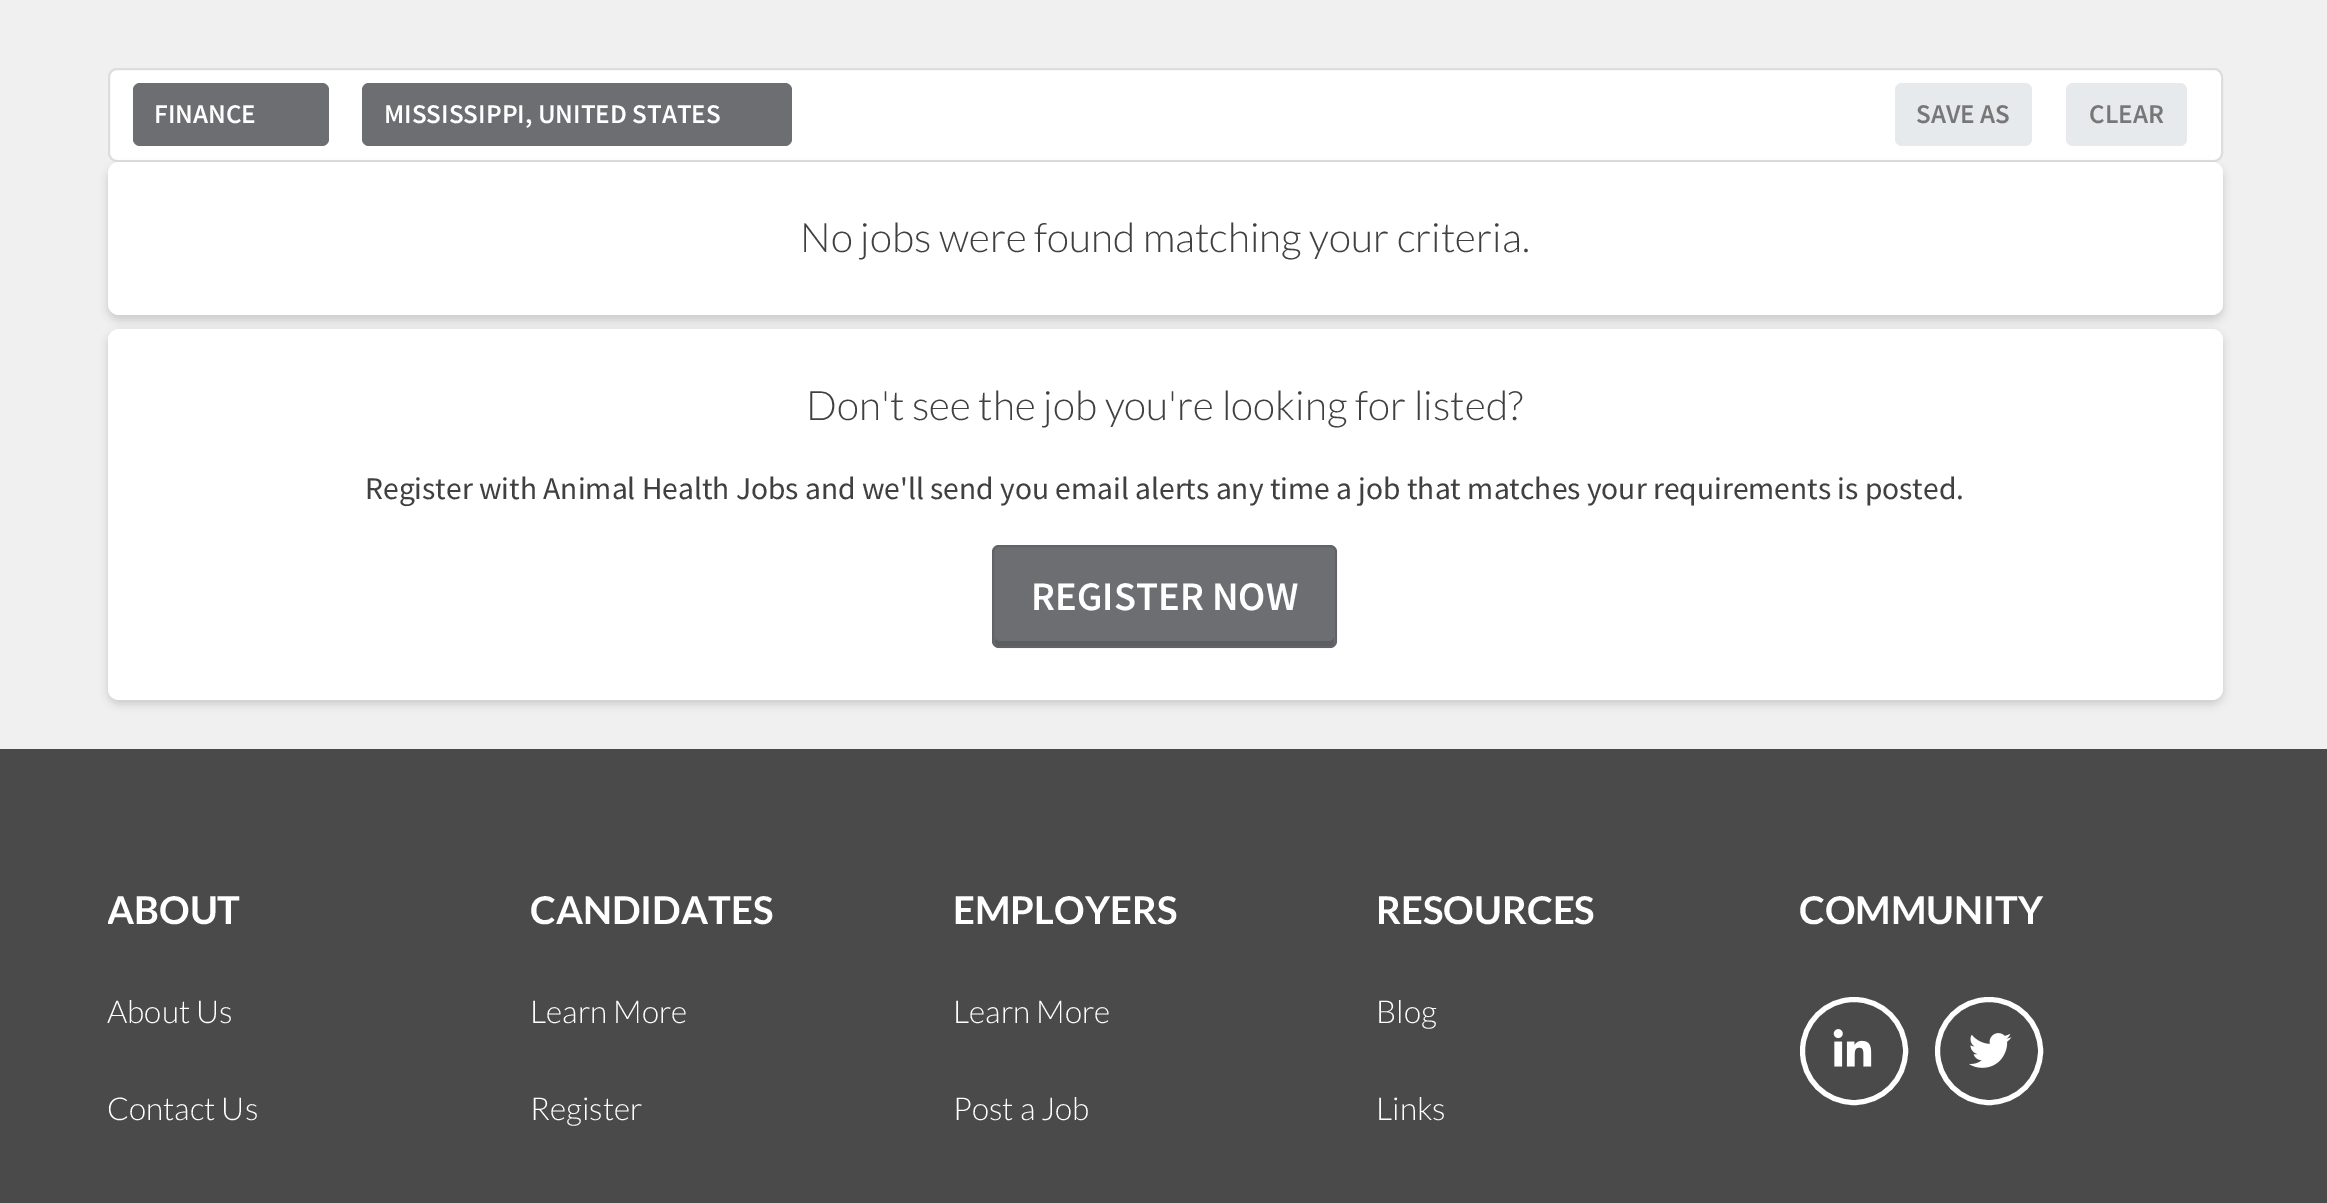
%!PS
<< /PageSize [2327 1203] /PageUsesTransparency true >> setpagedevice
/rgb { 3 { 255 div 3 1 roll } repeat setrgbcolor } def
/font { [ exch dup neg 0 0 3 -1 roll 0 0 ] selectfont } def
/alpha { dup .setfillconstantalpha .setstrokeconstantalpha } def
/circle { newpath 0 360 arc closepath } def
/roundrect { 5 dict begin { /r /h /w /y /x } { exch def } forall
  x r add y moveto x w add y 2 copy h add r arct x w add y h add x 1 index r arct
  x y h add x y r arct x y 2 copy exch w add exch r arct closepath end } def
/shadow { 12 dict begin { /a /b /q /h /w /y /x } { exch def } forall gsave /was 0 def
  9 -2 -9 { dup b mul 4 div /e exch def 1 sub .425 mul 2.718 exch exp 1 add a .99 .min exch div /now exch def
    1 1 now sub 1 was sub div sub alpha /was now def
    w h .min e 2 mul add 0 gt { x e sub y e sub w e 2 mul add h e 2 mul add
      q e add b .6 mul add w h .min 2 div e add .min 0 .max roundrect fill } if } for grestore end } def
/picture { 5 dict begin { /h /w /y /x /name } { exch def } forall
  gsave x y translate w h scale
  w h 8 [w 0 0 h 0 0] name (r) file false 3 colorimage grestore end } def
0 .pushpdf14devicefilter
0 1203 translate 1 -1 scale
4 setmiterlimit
240 240 240 rgb
0 0 2327 1203 rectfill
255 255 255 rgb
109 69 2113 92 8 roundrect gsave fill grestore
221 221 221 rgb
2 setlinewidth
stroke
109 110 114 rgb
133 83 196 63 7 roundrect fill
362 83 430 63 7 roundrect fill
230 234 237 rgb
1895 83 137 63 7 roundrect fill
2066 83 121 63 7 roundrect fill
0 0 0 rgb
108 167 2115 153 11 4.5 0.15 shadow
255 255 255 rgb
108 162 2115 153 11 roundrect fill
0 0 0 rgb
108 333 2115 371 11 4.5 0.15 shadow
255 255 255 rgb
108 329 2115 371 11 roundrect fill
109 110 114 rgb
992 545 345 103 7 roundrect fill
93 94 97 rgb
995 639 moveto 995 641 lineto 995 644 997 646 1000 646 curveto 1329 646 lineto 1332 646 1334 644 1334 641 curveto 1334 637 lineto 1334 639 1332 641 1330 641 curveto 999 641 lineto 998 641 996 640 995 639 curveto closepath fill
0.1 alpha
0 0 0 rgb
993 546 343 101 6 roundrect stroke
1 alpha
74 74 74 rgb
0 749 2327 454 rectfill
255 255 255 rgb
5 setlinewidth
1854 1051 51.5 circle stroke
(img/1.rgb) 1833 1029 39 38 picture
1989 1051 51.5 circle stroke
(img/2.rgb) 1969 1033 43 35 picture
/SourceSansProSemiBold-SemiBold 27 font
154 123 moveto (FINANCE) show
384 123 moveto (MISSISSIPPI, UNITED STATES) show
119 119 119 rgb
1916 123 moveto (SAVE AS) show
2089 123 moveto (CLEAR) show
/Lato-Light 40.5 font
64 64 64 rgb
800 252 moveto (No jobs were found matching your criteria.) show
806 420 moveto (Don't see the job you're looking for listed?) show
/SourceSansPro-Regular 31.5 font
365 499 moveto (Register with Animal Health Jobs and we'll send you email alerts any time a job that matches your requirements is posted.) show
/SourceSansProSemiBold-SemiBold 40.5 font
255 255 255 rgb
1031 610 moveto (REGISTER NOW) show
gsave
108 857 423 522 rectclip
/Lato-Bold 38.25 font
107 924 moveto (ABOUT) show
grestore
/Lato-Light 31.5 font
107 1023 moveto (About Us) show
107 1120 moveto (Contact Us) show
/Lato-Bold 38.25 font
530 924 moveto (CANDIDATES) show
/Lato-Light 31.5 font
530 1023 moveto (Learn More) show
530 1120 moveto (Register) show
/Lato-Bold 38.25 font
953 924 moveto (EMPLOYERS) show
/Lato-Light 31.5 font
953 1023 moveto (Learn More) show
953 1120 moveto (Post a Job) show
/Lato-Bold 38.25 font
1376 924 moveto (RESOURCES) show
/Lato-Light 31.5 font
1376 1023 moveto (Blog) show
1376 1120 moveto (Links) show
/Lato-Bold 38.25 font
1799 924 moveto (COMMUNITY) show
.poppdf14devicefilter showpage
